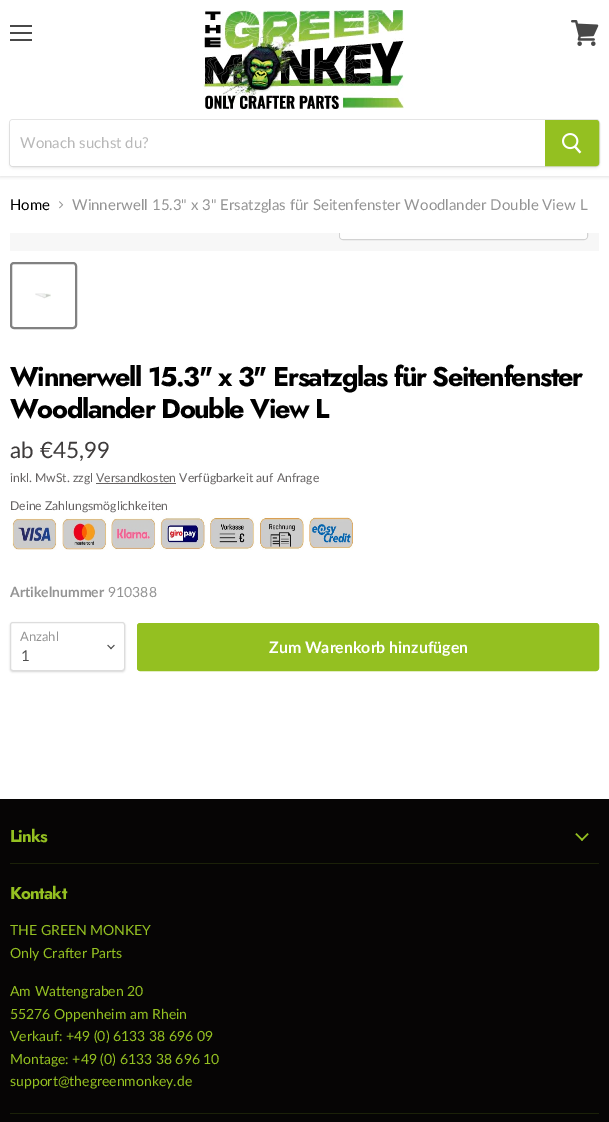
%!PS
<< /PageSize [609 1122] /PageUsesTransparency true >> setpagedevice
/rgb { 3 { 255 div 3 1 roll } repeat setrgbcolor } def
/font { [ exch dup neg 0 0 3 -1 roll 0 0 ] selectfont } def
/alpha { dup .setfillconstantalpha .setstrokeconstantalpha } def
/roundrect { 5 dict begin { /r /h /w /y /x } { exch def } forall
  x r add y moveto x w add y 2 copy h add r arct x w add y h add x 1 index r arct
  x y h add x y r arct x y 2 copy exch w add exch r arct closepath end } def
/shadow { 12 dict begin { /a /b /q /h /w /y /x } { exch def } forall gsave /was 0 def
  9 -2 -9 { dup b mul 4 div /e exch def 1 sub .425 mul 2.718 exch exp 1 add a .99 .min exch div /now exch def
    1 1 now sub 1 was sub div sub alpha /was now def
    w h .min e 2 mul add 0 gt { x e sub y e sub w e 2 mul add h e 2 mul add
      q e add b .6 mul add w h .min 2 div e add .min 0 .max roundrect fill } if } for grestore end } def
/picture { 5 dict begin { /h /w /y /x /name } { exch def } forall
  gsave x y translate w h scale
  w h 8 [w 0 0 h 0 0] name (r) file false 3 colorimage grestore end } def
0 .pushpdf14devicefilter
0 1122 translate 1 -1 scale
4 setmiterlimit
255 255 255 rgb
0 0 609 1122 rectfill
gsave
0 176 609 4 rectclip
128 128 128 rgb
0 1 609 176 0 2 0.25 shadow
grestore
[
  [10 25 22 2 72 72 72]
  [10 32 22 2 72 72 72]
  [10 39 22 2 72 72 72]
] { aload pop rgb rectfill } forall
(img/1.rgb) 571 20 28 26 picture
(img/2.rgb) 203 10 201 100 picture
128 128 128 rgb
9 121 591 48 4 1.5 0.11 shadow
0.2 alpha
9.5 119.5 590 47 3.5 roundrect stroke
1 alpha
255 255 255 rgb
13 120 moveto 545 120 lineto 545 166 lineto 13 166 lineto 11.5 166 10 164.5 10 163 curveto 10 123 lineto 10 121.5 11.5 120 13 120 curveto closepath fill
148 192 33 rgb
545.5 120.5 moveto 596 120.5 lineto 597.5 120.5 598.5 121.5 598.5 123 curveto 598.5 163 lineto 598.5 164.5 597.5 165.5 596 165.5 curveto 545.5 165.5 lineto closepath gsave fill grestore
stroke
(img/3.rgb) 562 133 20 21 picture
(img/4.rgb) 59 201 5 8 picture
247 247 247 rgb
10 233 589 18 rectfill
129 129 129 rgb
2 setlinewidth
11 263 65 65 3 roundrect stroke
(img/5.rgb) 35 293 16 6 picture
101 98 98 rgb
96 483 80 1 rectfill
(img/6.rgb) 12 517 341 33 picture
0 0 0 rgb
10 623 115 49 3 1 0.15 shadow
255 255 255 rgb
10.5 622.5 114 48 2.5 roundrect gsave fill grestore
221 221 221 rgb
1 setlinewidth
stroke
(img/7.rgb) 107 644 8 6 picture
148 192 33 rgb
137.5 623.5 461 47 2.5 roundrect gsave fill grestore
stroke
6 5 5 rgb
0 799 609 323 rectfill
27 33 9 rgb
10 863 589 1 rectfill
(img/8.rgb) 575 833 14 8 picture
10 1113 589 1 rectfill
/Lato-Regular 15 font
184 184 184 rgb
20 148 moveto (Wonach suchst du?) show
0 0 0 rgb
10 210 moveto (Home) show
148 148 148 rgb
72 210 moveto (Winnerwell 15.3" x 3" Ersatzglas für Seitenfenster Woodlander Double View L) show
gsave
10 233 589 18 rectclip
210 210 210 rgb
339.5 210.5 248 29 3.5 roundrect stroke
grestore
0.9 alpha
255 255 255 rgb
340 233 moveto 587 233 lineto 587 236 lineto 587 237.5 585.5 239 584 239 curveto 343 239 lineto 341.5 239 340 237.5 340 236 curveto closepath fill
/Jost-Bold 27 font
1 alpha
0 0 0 rgb
10 386 moveto -1.35 0 (Winnerwell 15.3" x 3" Ersatzglas für Seitenfenster) ashow
10 418 moveto -1.35 0 (Woodlander Double View L) ashow
/Lato-Regular 22.5 font
62 59 59 rgb
10 458 moveto (ab €45,99) show
/Lato-Regular 12.2 font
101 98 98 rgb
10 482 moveto (inkl. MwSt. zzgl Versandkosten Verfügbarkeit auf Anfrage) show
10 510 moveto (Deine Zahlungsmöglichkeiten) show
/Lato-Bold 14 font
148 148 148 rgb
10 597 moveto (Artikelnummer) show
/Lato-Regular 14 font
108 597 moveto (910388) show
/Lato-Regular 13 font
20 641 moveto (Anzahl) show
/Lato-Regular 15 font
77 77 77 rgb
21 661 moveto (1) show
/Lato-Bold 15.9 font
255 255 255 rgb
269 653 moveto (Zum Warenkorb hinzufügen) show
/Jost-Bold 17 font
148 192 33 rgb
10 842 moveto -0.75 0 (Links) ashow
10 899 moveto -0.75 0 (Kontakt) ashow
/Lato-Regular 14 font
[
  [(THE GREEN MONKEY) 10 935]
  [(Only Crafter Parts) 10 958]
  [(Am Wattengraben 20) 10 996]
  [(55276 Oppenheim am Rhein) 10 1019]
  [(Verkauf: +49 \(0\) 6133 38 696 09) 10 1041]
  [(Montage: +49 \(0\) 6133 38 696 10) 10 1064]
  [(support@thegreenmonkey.de) 10 1086]
] { aload pop moveto show } forall
.poppdf14devicefilter showpage
